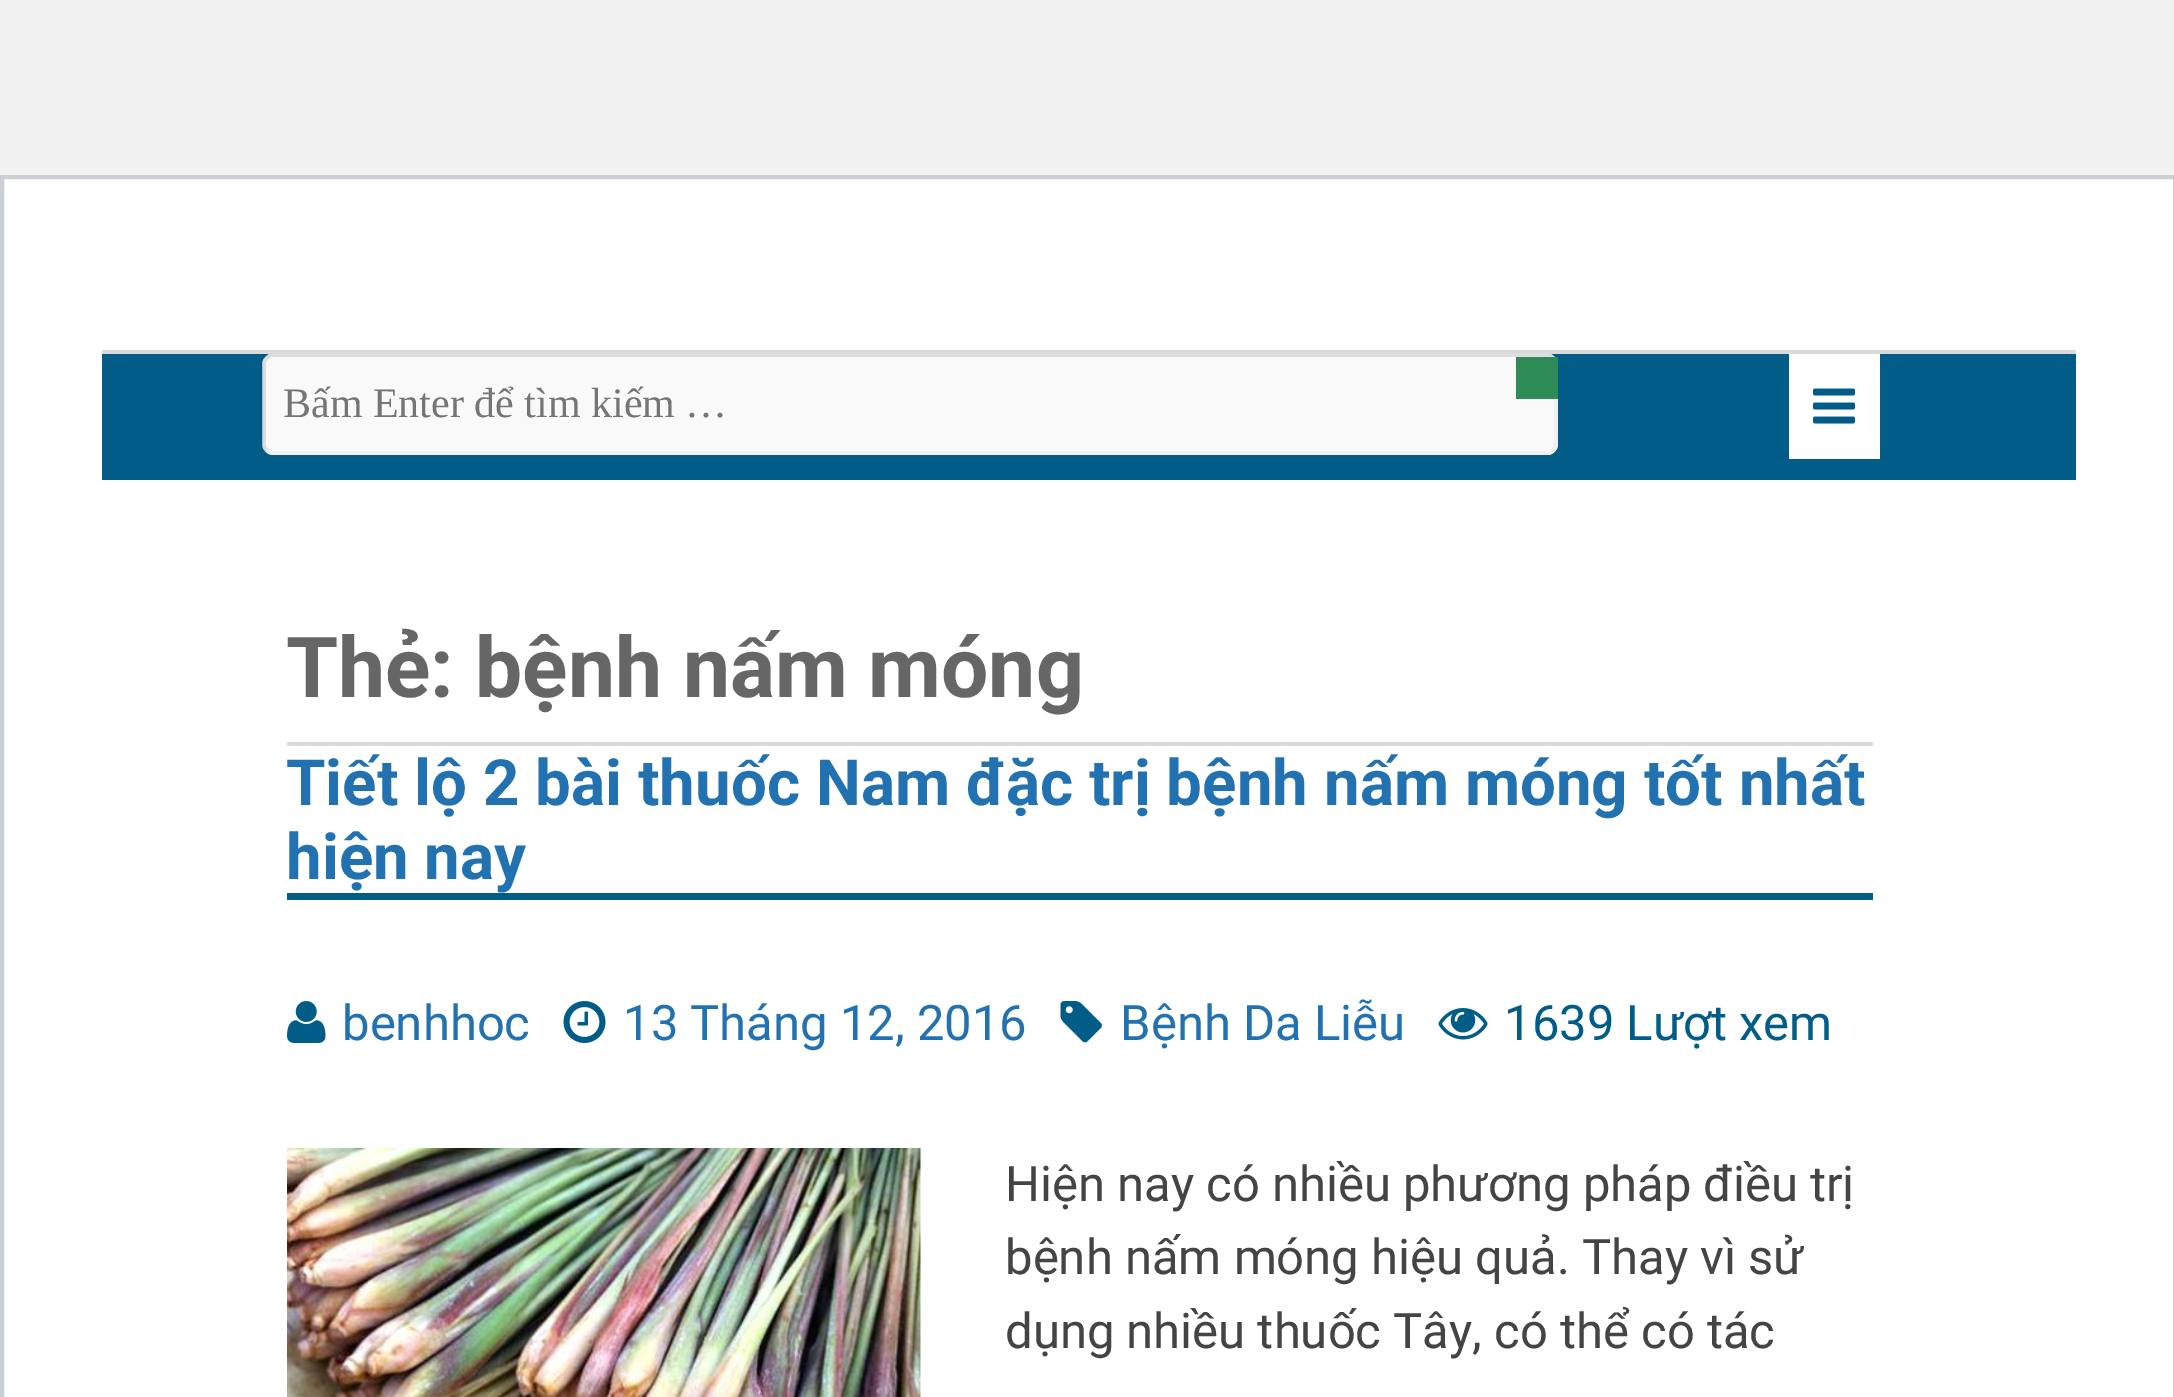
%!PS
<< /PageSize [2174 1397] >> setpagedevice
/rgb { 3 { 255 div 3 1 roll } repeat setrgbcolor } def
/font { [ exch dup neg 0 0 3 -1 roll 0 0 ] selectfont } def
/roundrect { 5 dict begin { /r /h /w /y /x } { exch def } forall
  x r add y moveto x w add y 2 copy h add r arct x w add y h add x 1 index r arct
  x y h add x y r arct x y 2 copy exch w add exch r arct closepath end } def
/picture { 5 dict begin { /h /w /y /x /name } { exch def } forall
  gsave x y translate w h scale
  w h 8 [w 0 0 h 0 0] name (r) file false 3 colorimage grestore end } def
0 1397 translate 1 -1 scale
4 setmiterlimit
241 241 241 rgb
0 0 2174 1397 rectfill
255 255 255 rgb
2 177 moveto 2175 177 lineto 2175 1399 lineto 2 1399 lineto closepath gsave fill grestore
204 208 212 rgb
4 setlinewidth
stroke
218 218 218 rgb
102 350 1974 4 rectfill
2 92 136 rgb
102 354 1974 126 rectfill
249 249 249 rgb
263 354 1295 101 11 roundrect fill
241 241 241 rgb
3.5 setlinewidth
1553 358 moveto 1555 359.5 1556 361.5 1556 364 curveto 1556 444.5 lineto 1556 447 1555 449 1553 450.5 curveto 1551.5 452.5 1549.5 453 1547 453 curveto 273 453 lineto 270.5 453 268.5 452.5 267 450.5 curveto stroke
221 221 221 rgb
267 450.5 moveto 265 449 264 447 264 444.5 curveto 264 364 lineto 264 361.5 265 359.5 267 358 curveto 268.5 356 270.5 355 273 355 curveto 1547 355 lineto 1549.5 355 1551.5 356 1553 358 curveto stroke
46 139 87 rgb
1516 357 42 42 rectfill
255 255 255 rgb
1789 354 91 105 rectfill
(img/1.rgb) 1813 388 42 36 picture
218 218 218 rgb
287 742 1586 4 rectfill
2 92 136 rgb
287 893 1586 7 rectfill
(img/2.rgb) 287 1001 39 42 picture
(img/3.rgb) 563 1001 43 42 picture
(img/4.rgb) 1060 1001 42 42 picture
(img/5.rgb) 1438 1008 50 32 picture
(img/6.rgb) 287 1148 634 249 picture
/LiberationSerif-Regular 42 font
117 117 117 rgb
283 417 moveto (Bấm Enter để tìm kiếm …) show
/Roboto-Bold 84 font
102 102 102 rgb
286 697 moveto (Thẻ: bệnh nấm móng) show
/Roboto-Bold 63.7 font
34 113 177 rgb
286 805 moveto (Tiết lộ 2 bài thuốc Nam đặc trị bệnh nấm móng tốt nhất) show
286 879 moveto (hiện nay) show
/Roboto-Regular 49 font
[
  [(benhhoc) 342 1040]
  [(13 Tháng 12, 2016) 623 1040]
  [(Bệnh Da Liễu) 1120 1040]
] { aload pop moveto show } forall
2 92 136 rgb
1504 1040 moveto (1639 Lượt xem) show
68 68 68 rgb
[
  [(Hiện nay có nhiều phương pháp điều trị) 1005 1201]
  [(bệnh nấm móng hiệu quả. Thay vì sử) 1005 1274]
  [(dụng nhiều thuốc Tây, có thể có tác) 1005 1348]
] { aload pop moveto show } forall
showpage
